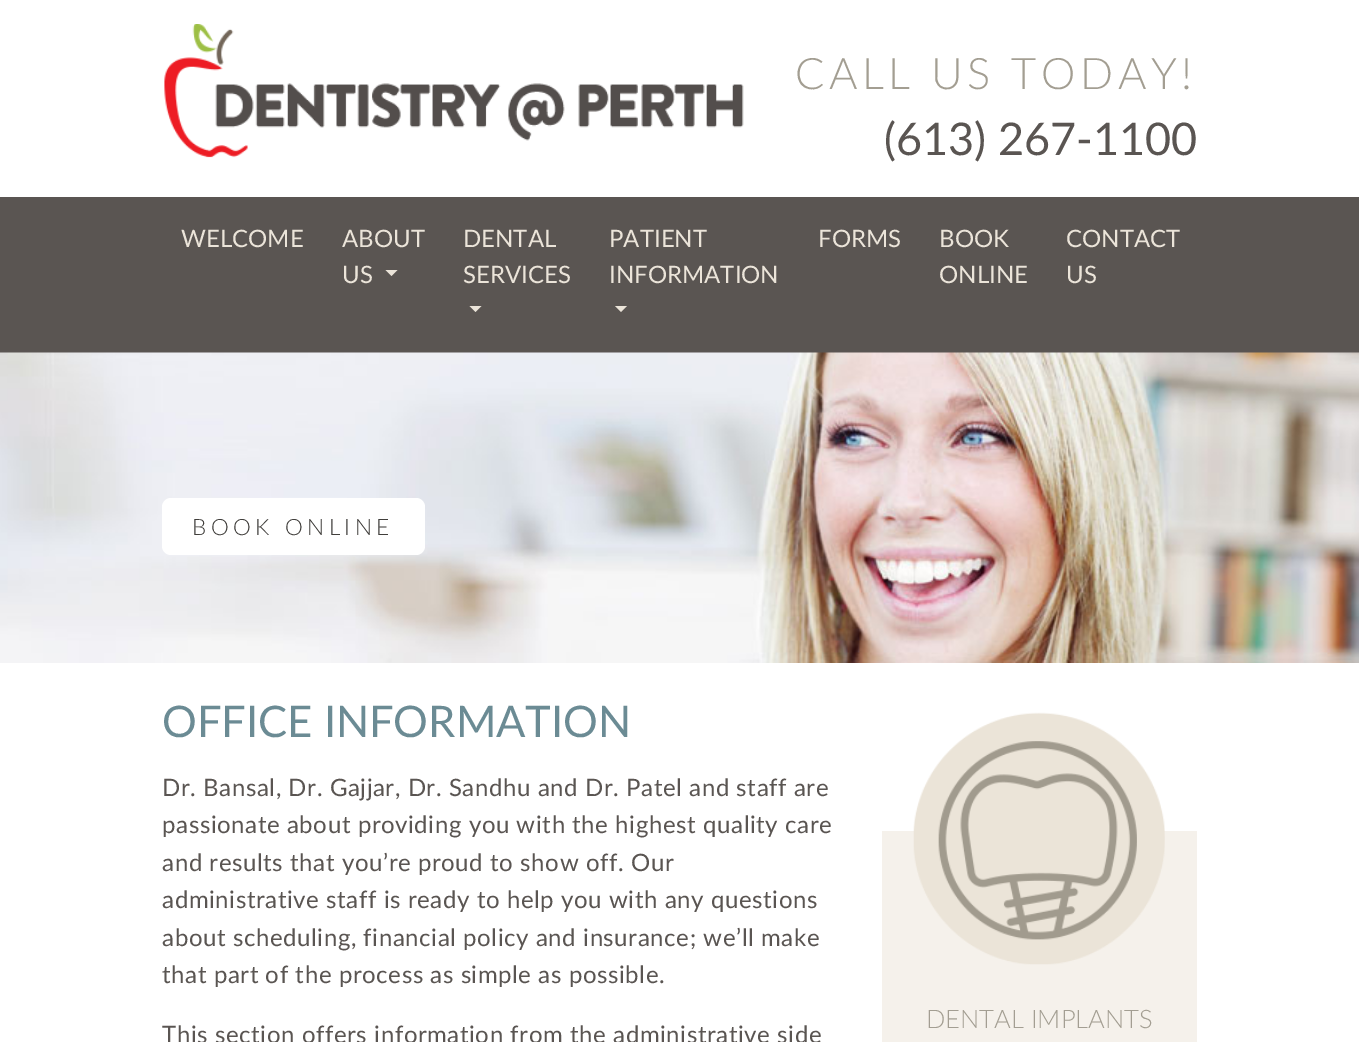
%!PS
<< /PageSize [1359 1042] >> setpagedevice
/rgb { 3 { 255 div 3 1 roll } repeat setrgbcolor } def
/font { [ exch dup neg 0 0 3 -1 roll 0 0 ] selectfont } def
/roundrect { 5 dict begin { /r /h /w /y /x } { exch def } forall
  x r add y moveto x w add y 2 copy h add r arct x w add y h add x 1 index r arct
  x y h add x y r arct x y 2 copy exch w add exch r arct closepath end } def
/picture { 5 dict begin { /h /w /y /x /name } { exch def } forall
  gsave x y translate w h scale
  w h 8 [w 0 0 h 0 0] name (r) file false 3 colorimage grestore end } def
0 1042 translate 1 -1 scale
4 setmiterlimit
255 255 255 rgb
0 0 1359 1042 rectfill
(img/1.rgb) 164 24 580 134 picture
90 85 82 rgb
0 197 1359 156 rectfill
235 228 217 rgb
385.5 270 moveto 397.5 270 lineto 391.5 276 lineto closepath fill
469.5 306 moveto 481.5 306 lineto 475.5 312 lineto closepath fill
615 306 moveto 627 306 lineto 621 312 lineto closepath fill
(img/2.rgb) 0 352 1359 311 picture
255 255 255 rgb
162 498 263 57 9 roundrect fill
245 241 235 rgb
882 831 315 211 rectfill
(img/3.rgb) 913 712 252 253 picture
/Lato-Light 43.5 font
163 158 146 rgb
795 89 moveto 4.5 0 (CALL US TODAY!) ashow
/Lato-Regular 45 font
90 85 82 rgb
884 155 moveto (\(613\) 267-1100) show
/Lato-Regular 24 font
235 228 217 rgb
[
  [(WELCOME) 181 247]
  [(ABOUT) 342 247]
  [(US) 342 283]
  [(DENTAL) 463 247]
  [(SERVICES) 463 283]
  [(PATIENT) 609 247]
  [(INFORMATION) 609 283]
  [(FORMS) 818 247]
  [(BOOK) 939 247]
  [(ONLINE) 939 283]
  [(CONTACT) 1066 247]
  [(US) 1066 283]
] { aload pop moveto show } forall
/Lato-Light 22.5 font
64 62 59 rgb
192 535 moveto 4.5 0 (BOOK ONLINE) ashow
/Lato-Regular 43.5 font
107 139 148 rgb
162 737 moveto (OFFICE INFORMATION) show
/Lato-Regular 24 font
90 85 82 rgb
162 796 moveto 0.6 0 (Dr. Bansal, Dr. Gajjar, Dr. Sandhu and Dr. Patel and staff are) ashow
162 833 moveto 0.6 0 (passionate about providing you with the highest quality care) ashow
162 871 moveto 0.6 0 (and results that you’re proud to show off. Our) ashow
162 908 moveto 0.6 0 (administrative staff is ready to help you with any questions) ashow
162 946 moveto 0.6 0 (about scheduling, financial policy and insurance; we’ll make) ashow
162 983 moveto 0.6 0 (that part of the process as simple as possible.) ashow
162 1043 moveto 0.6 0 (This section offers information from the administrative side) ashow
/Lato-Light 25.5 font
163 158 146 rgb
926 1028 moveto (DENTAL IMPLANTS) show
showpage
